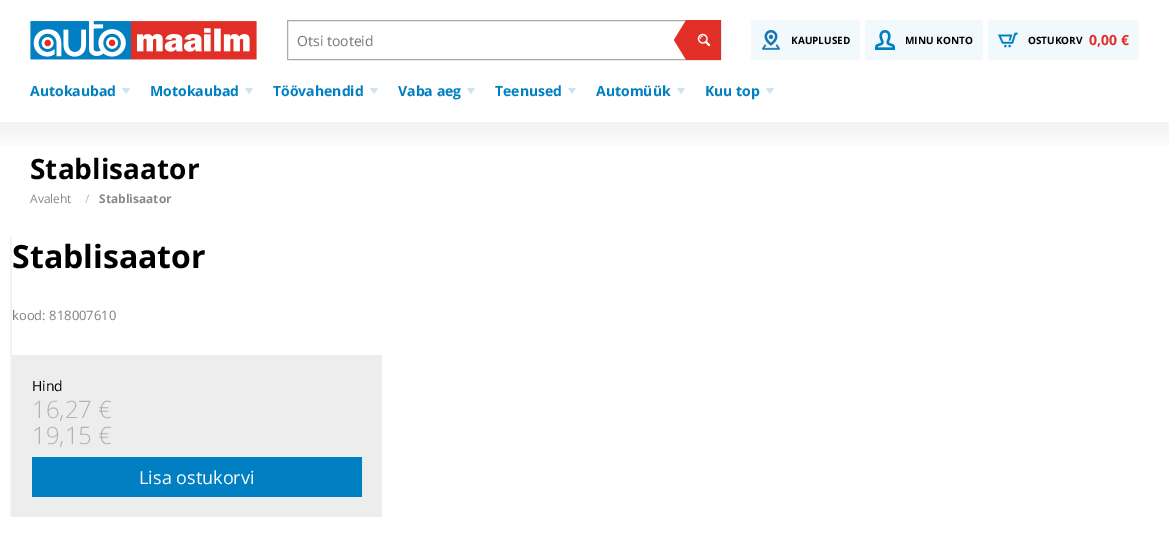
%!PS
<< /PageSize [1169 537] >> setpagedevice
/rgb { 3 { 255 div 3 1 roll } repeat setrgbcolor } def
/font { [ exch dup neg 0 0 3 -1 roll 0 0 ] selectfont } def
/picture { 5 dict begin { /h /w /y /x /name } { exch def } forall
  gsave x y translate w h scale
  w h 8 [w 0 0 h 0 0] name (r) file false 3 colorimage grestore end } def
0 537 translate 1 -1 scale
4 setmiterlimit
255 255 255 rgb
0 0 1169 537 rectfill
(img/1.rgb) 30 21 227 39 picture
170 170 170 rgb
287.5 20.5 433 39 rectstroke
gsave
287 20 434 40 rectclip
225 46 39 rgb
704 -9 moveto 734 40 lineto 704 89 lineto 674 40 lineto closepath fill
grestore
(img/2.rgb) 697 33 14 14 picture
242 249 252 rgb
751 20 109 40 rectfill
(img/3.rgb) 762 30 18 20 picture
865 20 118 40 rectfill
(img/4.rgb) 875 30 20 20 picture
988 20 151 40 rectfill
(img/5.rgb) 998 32 20 16 picture
204 229 243 rgb
122 88 moveto 130 88 lineto 126 94 lineto closepath fill
245 88 moveto 253 88 lineto 249 94 lineto closepath fill
370 88 moveto 378 88 lineto 374 94 lineto closepath fill
467 88 moveto 475 88 lineto 471 94 lineto closepath fill
568 88 moveto 576 88 lineto 572 94 lineto closepath fill
677 88 moveto 685 88 lineto 681 94 lineto closepath fill
766 88 moveto 774 88 lineto 770 94 lineto closepath fill
gsave 0 122 moveto 1169 122 lineto 1169 146 lineto 0 146 lineto closepath clip newpath
<< /ShadingType 2 /ColorSpace /DeviceRGB /Coords [585 122 585 152] /Extend [true true] /Function << /FunctionType 2 /Domain [0 1] /C0 [0.949 0.949 0.949] /C1 [1 1 1] /N 1 >> >> shfill grestore
[
  [10 237 2 280 242 242 242]
  [12 355 370 162 237 237 237]
  [32 457 330 40 0 127 194]
] { aload pop rgb rectfill } forall
/OpenSans-Regular 14 font
117 117 117 rgb
297 46 moveto (Otsi tooteid) show
/OpenSans-Bold 10 font
0 0 0 rgb
[
  [(KAUPLUSED) 791 44]
  [(MINU KONTO) 905 44]
  [(OSTUKORV) 1028 44]
] { aload pop moveto show } forall
/OpenSans-Bold 14 font
225 46 39 rgb
1089 45 moveto (0,00 €) show
0 127 194 rgb
[
  [(Autokaubad) 30 96]
  [(Motokaubad) 150 96]
  [(Töövahendid) 273 96]
  [(Vaba aeg) 398 96]
  [(Teenused) 495 96]
  [(Automüük) 596 96]
  [(Kuu top) 705 96]
] { aload pop moveto show } forall
/OpenSans-Bold 28 font
0 0 0 rgb
30 179 moveto (Stablisaator) show
/OpenSans-Regular 12 font
136 136 136 rgb
30 203 moveto (Avaleht) show
184 184 184 rgb
85 203 moveto (/) show
/OpenSans-Bold 12 font
136 136 136 rgb
99 203 moveto (Stablisaator) show
/OpenSans-Bold 32 font
0 0 0 rgb
12 268 moveto (Stablisaator) show
/OpenSans-Regular 13 font
128 128 128 rgb
12 320 moveto (kood: 818007610) show
/OpenSans-Regular 14 font
0 0 0 rgb
32 391 moveto (Hind) show
/OpenSans-Light 24 font
178 178 178 rgb
32 418 moveto (16,27 €) show
32 444 moveto (19,15 €) show
/OpenSans-Regular 18 font
255 255 255 rgb
139 484 moveto (Lisa ostukorvi) show
showpage
